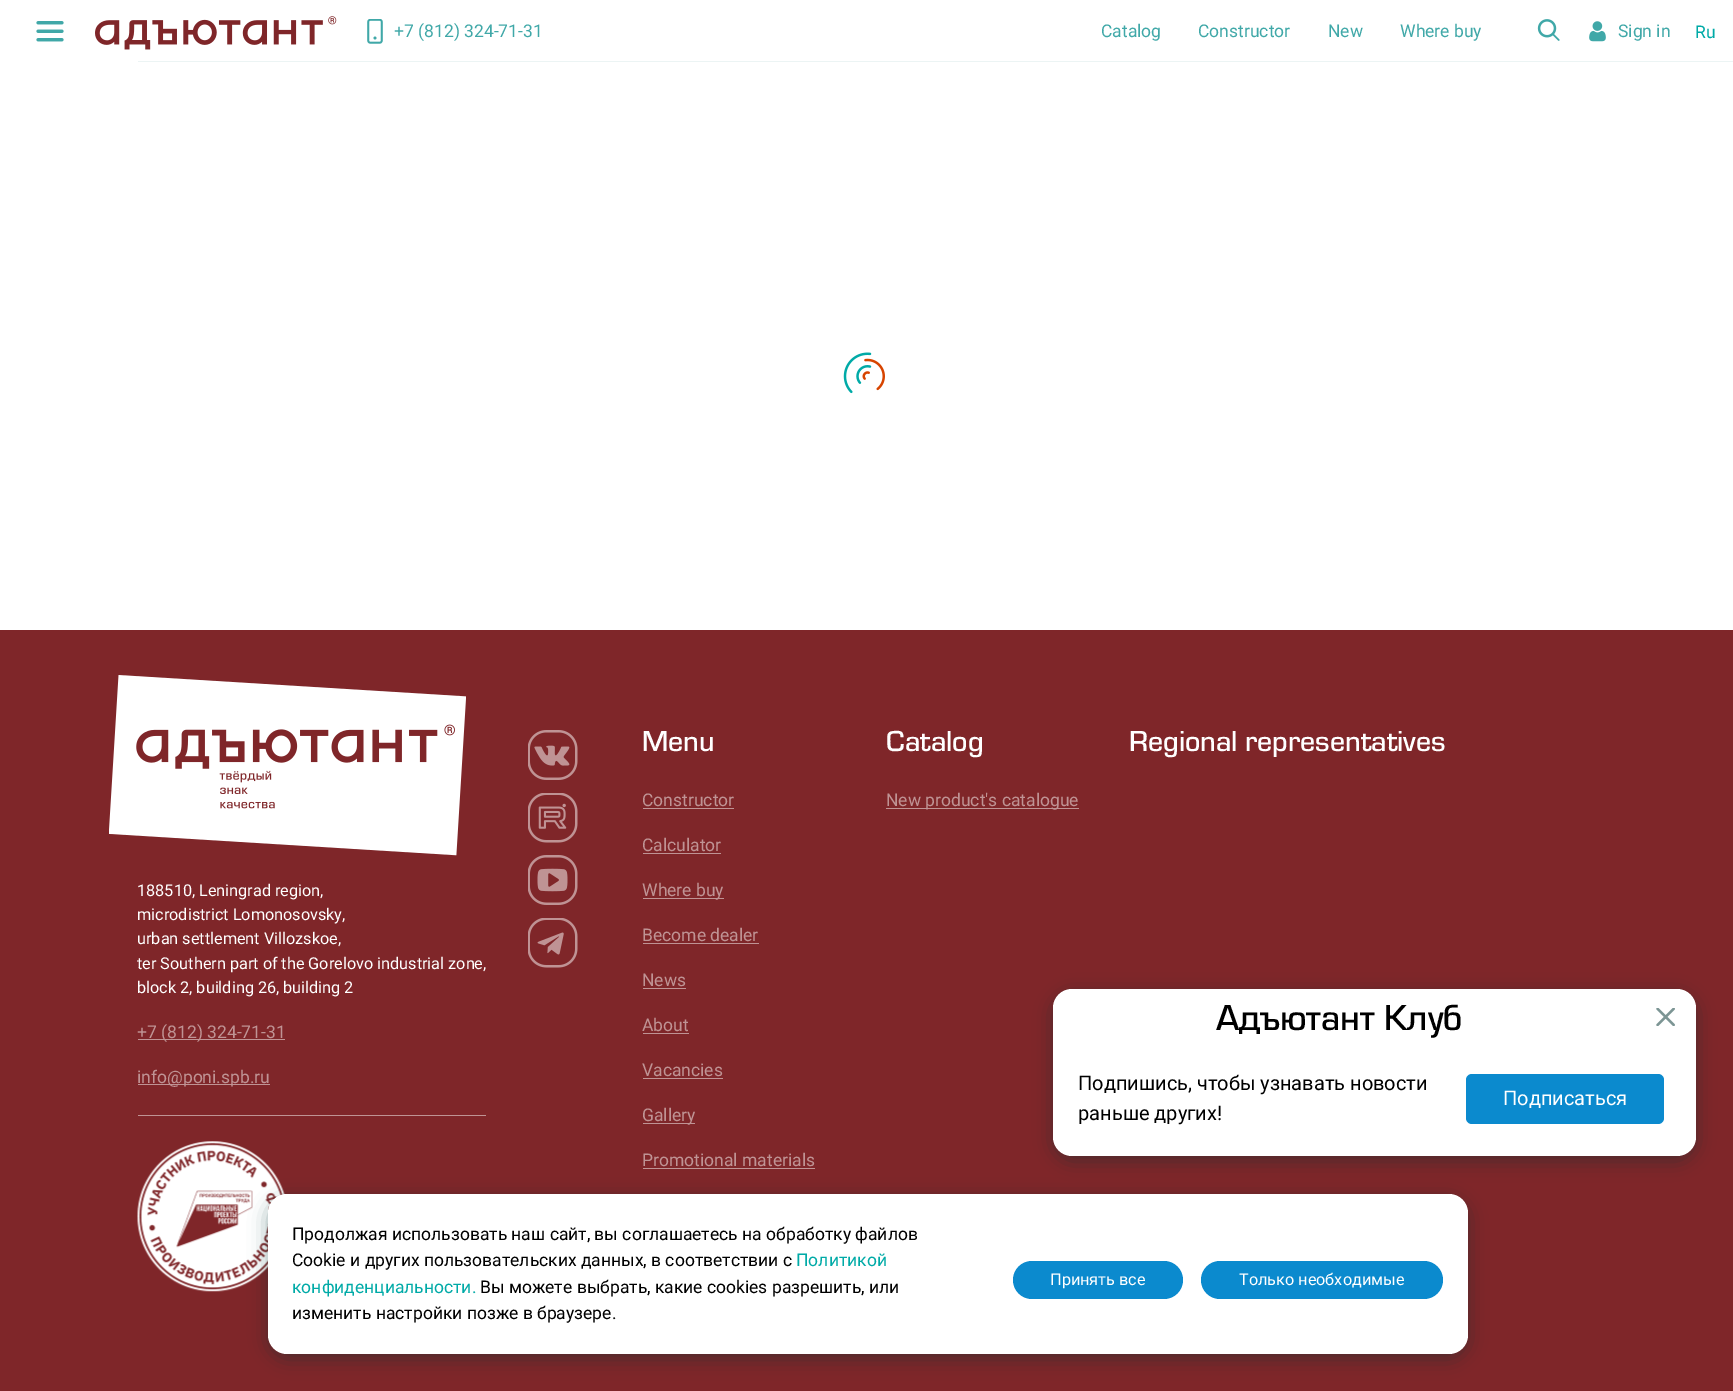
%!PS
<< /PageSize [1733 1391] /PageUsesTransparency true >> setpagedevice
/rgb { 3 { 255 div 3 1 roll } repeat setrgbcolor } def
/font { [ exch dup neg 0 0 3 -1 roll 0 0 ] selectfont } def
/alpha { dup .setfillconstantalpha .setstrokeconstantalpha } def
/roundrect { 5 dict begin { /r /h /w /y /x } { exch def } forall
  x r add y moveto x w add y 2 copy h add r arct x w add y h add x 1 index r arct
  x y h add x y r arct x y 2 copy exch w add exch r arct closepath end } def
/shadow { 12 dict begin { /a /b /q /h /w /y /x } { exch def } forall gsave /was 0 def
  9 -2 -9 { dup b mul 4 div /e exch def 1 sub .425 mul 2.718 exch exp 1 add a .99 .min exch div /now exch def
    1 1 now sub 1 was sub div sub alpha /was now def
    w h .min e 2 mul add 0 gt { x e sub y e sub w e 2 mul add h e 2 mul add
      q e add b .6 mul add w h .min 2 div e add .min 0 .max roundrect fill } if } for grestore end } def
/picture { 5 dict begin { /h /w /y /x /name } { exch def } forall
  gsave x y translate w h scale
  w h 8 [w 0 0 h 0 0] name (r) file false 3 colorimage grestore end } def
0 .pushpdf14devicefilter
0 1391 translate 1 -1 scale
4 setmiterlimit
255 255 255 rgb
0 0 1733 1391 rectfill
(img/1.rgb) 36 21 28 21 picture
(img/2.rgb) 95 16 242 34 picture
(img/3.rgb) 367 19 16 25 picture
(img/4.rgb) 1537 19 23 22 picture
(img/5.rgb) 1589 21 17 21 picture
236 244 244 rgb
138 61 1595 1 rectfill
(img/6.rgb) 843 352 42 42 picture
[
  [0 630 1733 761 127 38 41]
  [643 808 91 1 191 147 148]
  [643 853 78 1 191 147 148]
  [643 898 81 1 191 147 148]
  [643 943 116 1 191 147 148]
  [643 988 43 1 191 147 148]
  [643 1033 46 1 191 147 148]
  [643 1078 80 1 191 147 148]
  [643 1123 52 1 191 147 148]
  [643 1168 172 1 191 147 148]
  [886 808 193 1 191 147 148]
] { aload pop rgb rectfill } forall
(img/7.rgb) 109 675 357 181 picture
[
  [138 1039 147 1 191 147 148]
  [138 1084 132 1 191 147 148]
  [138 1115 348 1 191 147 148]
] { aload pop rgb rectfill } forall
(img/8.rgb) 137 1141 148 151 picture
(img/9.rgb) 528 730 50 50 picture
(img/10.rgb) 528 793 50 50 picture
(img/11.rgb) 528 855 50 50 picture
(img/12.rgb) 528 918 50 50 picture
0 52 49 rgb
1053 994 643 167 19 9.5 0.4 shadow
255 255 255 rgb
1053 989 643 167 19 roundrect fill
(img/13.rgb) 1656 1008 19 18 picture
11 138 206 rgb
1466 1074 198 50 6 roundrect fill
0 52 49 rgb
268 1199 1200 160 19 9.5 0.4 shadow
255 255 255 rgb
268 1194 1200 160 19 roundrect fill
11 138 206 rgb
1013 1261 170 38 19 roundrect fill
1201 1261 242 38 19 roundrect fill
/Roboto-Regular 17.5 font
64 168 168 rgb
[
  [(+7 \(812\) 324-71-31) 394 37]
  [(Catalog) 1101 37]
  [(Constructor) 1198 37]
  [(New) 1328 37]
  [(Where buy) 1400 37]
  [(Sign in) 1618 37]
] { aload pop moveto show } forall
0 170 167 rgb
1695 38 moveto (Ru) show
/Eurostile-Medium 30 font
255 255 255 rgb
642 751 moveto (Menu) show
/Roboto-Regular 17.5 font
191 147 148 rgb
[
  [(Constructor) 642 806]
  [(Calculator) 642 851]
  [(Where buy) 642 896]
  [(Become dealer) 642 941]
  [(News) 642 986]
  [(About) 642 1031]
  [(Vacancies) 642 1076]
  [(Gallery) 642 1121]
  [(Promotional materials) 642 1166]
] { aload pop moveto show } forall
/Eurostile-Medium 30 font
255 255 255 rgb
886 751 moveto (Catalog) show
/Roboto-Regular 17.5 font
191 147 148 rgb
886 806 moveto (New product's catalogue) show
/Eurostile-Medium 30 font
255 255 255 rgb
1129 751 moveto (Regional representatives) show
/Roboto-Regular 16.25 font
[
  [(188510, Leningrad region,) 137 896]
  [(microdistrict Lomonosovsky,) 137 920]
  [(urban settlement Villozskoe,) 137 944]
  [(ter Southern part of the Gorelovo industrial zone,) 137 969]
  [(block 2, building 26, building 2) 137 993]
] { aload pop moveto show } forall
/Roboto-Regular 17.5 font
191 147 148 rgb
137 1038 moveto (+7 \(812\) 324-71-31) show
137 1083 moveto (info@poni.spb.ru) show
/Eurostile-Medium 37.5 font
0 0 0 rgb
1216 1030 moveto (Адъютант Клуб) show
/Roboto-Regular 20 font
1078 1090 moveto (Подпишись, чтобы узнавать новости) show
1078 1120 moveto (раньше других!) show
255 255 255 rgb
1503 1105 moveto (Подписаться) show
/Roboto-Regular 17.5 font
0 0 0 rgb
292 1240 moveto (Продолжая использовать наш сайт, вы соглашаетесь на обработку файлов) show
292 1266 moveto (Cookie и других пользовательских данных, в соответствии с) show
0 170 167 rgb
796 1266 moveto (Политикой) show
292 1293 moveto (конфиденциальности.) show
0 0 0 rgb
480 1293 moveto (Вы можете выбрать, какие cookies разрешить, или) show
292 1319 moveto (изменить настройки позже в браузере.) show
/Roboto-Regular 16.25 font
255 255 255 rgb
1050 1285 moveto (Принять все) show
1239 1285 moveto (Только необходимые) show
.poppdf14devicefilter showpage
